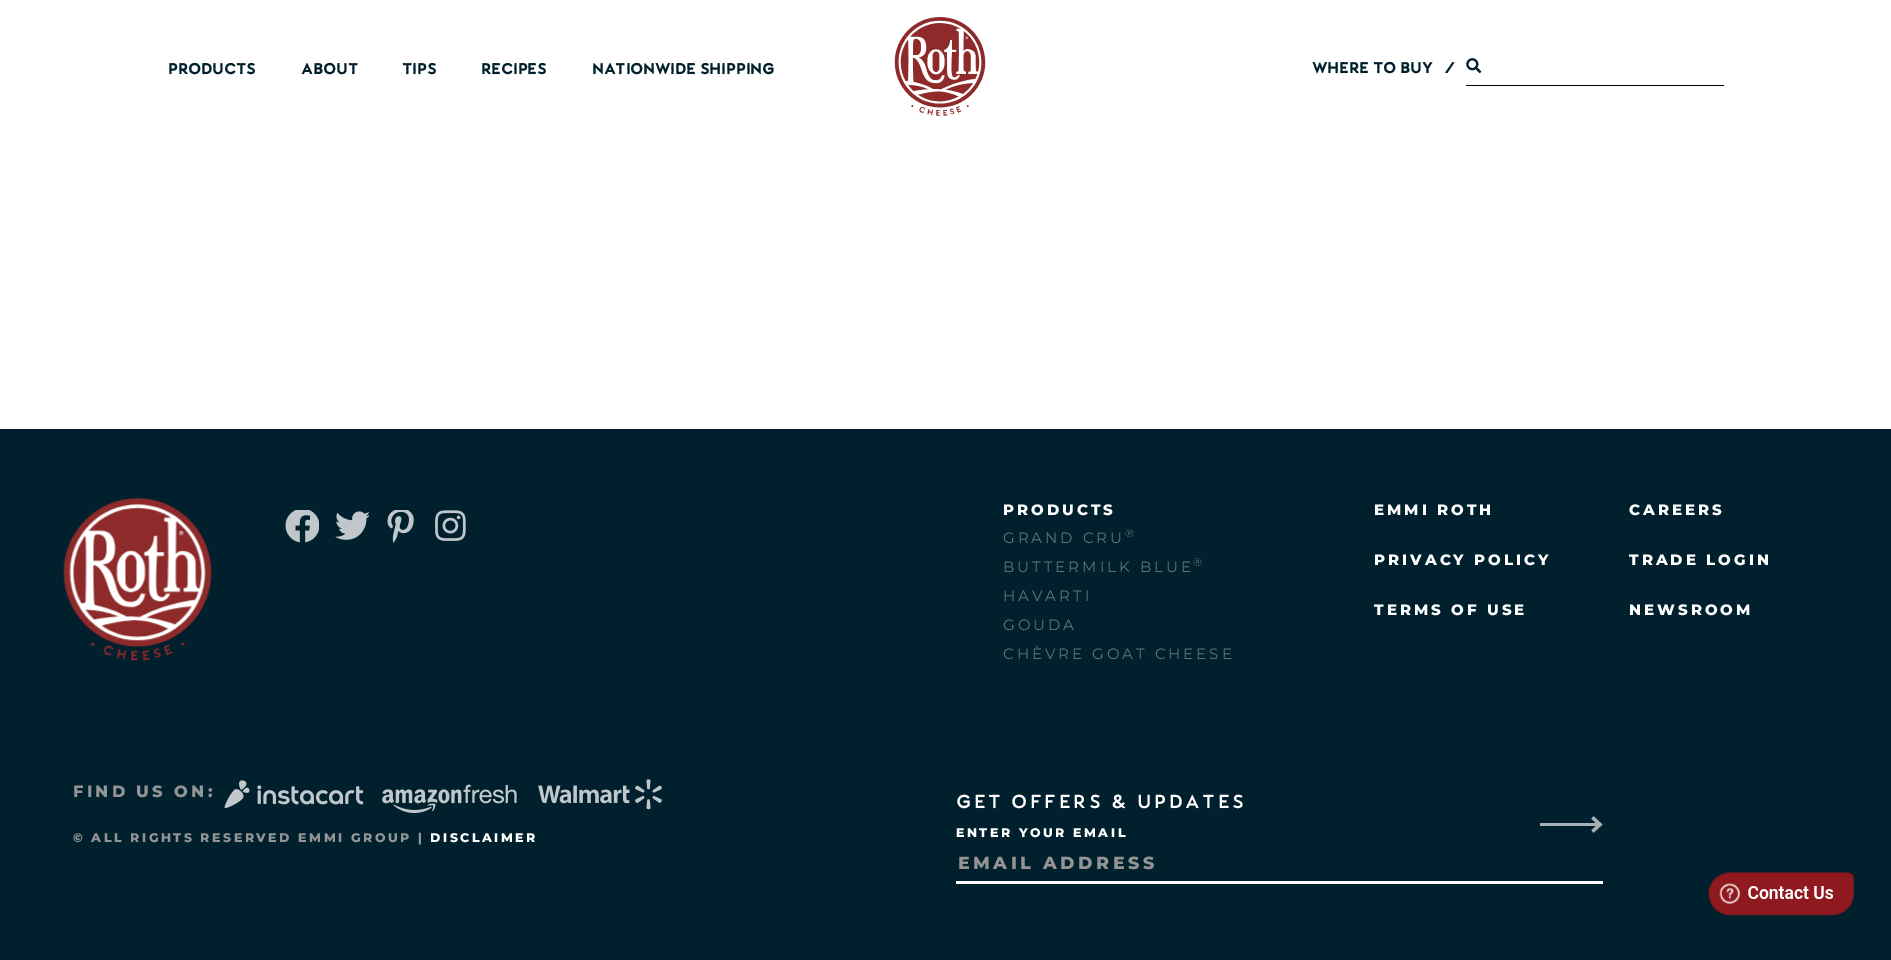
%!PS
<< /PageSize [1891 960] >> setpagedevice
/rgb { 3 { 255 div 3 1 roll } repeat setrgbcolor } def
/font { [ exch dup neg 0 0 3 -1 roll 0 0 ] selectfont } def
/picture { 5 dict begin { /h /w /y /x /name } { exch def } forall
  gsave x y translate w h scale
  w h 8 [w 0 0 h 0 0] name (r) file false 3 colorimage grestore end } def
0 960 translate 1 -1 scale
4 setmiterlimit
255 255 255 rgb
0 0 1891 960 rectfill
(img/1.rgb) 894 17 92 99 picture
(img/2.rgb) 1466 58 16 16 picture
0 0 0 rgb
1466 85 258 1 rectfill
0 32 45 rgb
0 429 1891 531 rectfill
(img/3.rgb) 63 498 149 163 picture
(img/4.rgb) 285 510 34 33 picture
(img/5.rgb) 335 511 34 29 picture
(img/6.rgb) 387 510 27 33 picture
(img/7.rgb) 435 510 31 31 picture
(img/8.rgb) 224 780 140 29 picture
(img/9.rgb) 382 784 135 29 picture
(img/10.rgb) 538 779 124 31 picture
255 255 255 rgb
956 881 647 3 rectfill
166 177 182 rgb
1540 823 60 3 rectfill
3.3 setlinewidth
1592.5 817.5 moveto 1600 824.5 lineto 1592.5 831.5 lineto stroke
(img/11.rgb) 1708 872 146 44 picture
/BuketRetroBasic-Bold 15 font
0 32 45 rgb
[
  [(PRODUCTS) 168 74]
  [(ABOUT) 301 74]
  [(TIPS) 402 74]
  [(RECIPES) 481 74]
  [(NATIONWIDE SHIPPING) 592 74]
  [(WHERE TO BUY) 1312 73]
  [(/) 1445 73]
] { aload pop moveto show } forall
/Montserrat-ExtraBold 15 font
255 255 255 rgb
1003 515 moveto 3 0 (PRODUCTS) ashow
/Montserrat-Regular 15 font
96 116 124 rgb
1003 543 moveto 3 0 (GRAND CRU) ashow
/Montserrat-Regular 11 font
1125 537 moveto 3 0 (®) ashow
/Montserrat-Regular 15 font
1003 572 moveto 3 0 (BUTTERMILK BLUE) ashow
/Montserrat-Regular 11 font
1193 566 moveto 3 0 (®) ashow
/Montserrat-Regular 15 font
1003 601 moveto 3 0 (HAVARTI) ashow
1003 630 moveto 3 0 (GOUDA) ashow
1003 659 moveto 3 0 (CHÈVRE GOAT CHEESE) ashow
/Montserrat-ExtraBold 15 font
255 255 255 rgb
1374 515 moveto 3 0 (EMMI ROTH) ashow
1629 515 moveto 3 0 (CAREERS) ashow
1374 565 moveto 3 0 (PRIVACY POLICY) ashow
1629 565 moveto 3 0 (TRADE LOGIN) ashow
1374 615 moveto 3 0 (TERMS OF USE) ashow
1629 615 moveto 3 0 (NEWSROOM) ashow
/Montserrat-ExtraBold 16.25 font
148 148 148 rgb
73 797 moveto 3.25 0 (FIND US ON:) ashow
/Montserrat-ExtraBold 12.5 font
73 842 moveto 2.5 0 (© ALL RIGHTS RESERVED EMMI GROUP |) ashow
255 255 255 rgb
430 842 moveto 2.5 0 (DISCLAIMER) ashow
/BuketRetroBasic-Regular 18.75 font
956 808 moveto 2.5 0 (GET OFFERS & UPDATES) ashow
/Montserrat-ExtraBold 12.5 font
956 837 moveto 2.5 0 (ENTER YOUR EMAIL) ashow
/Montserrat-ExtraBold 17.5 font
148 148 148 rgb
958 869 moveto 3.5 0 (EMAIL ADDRESS) ashow
showpage
